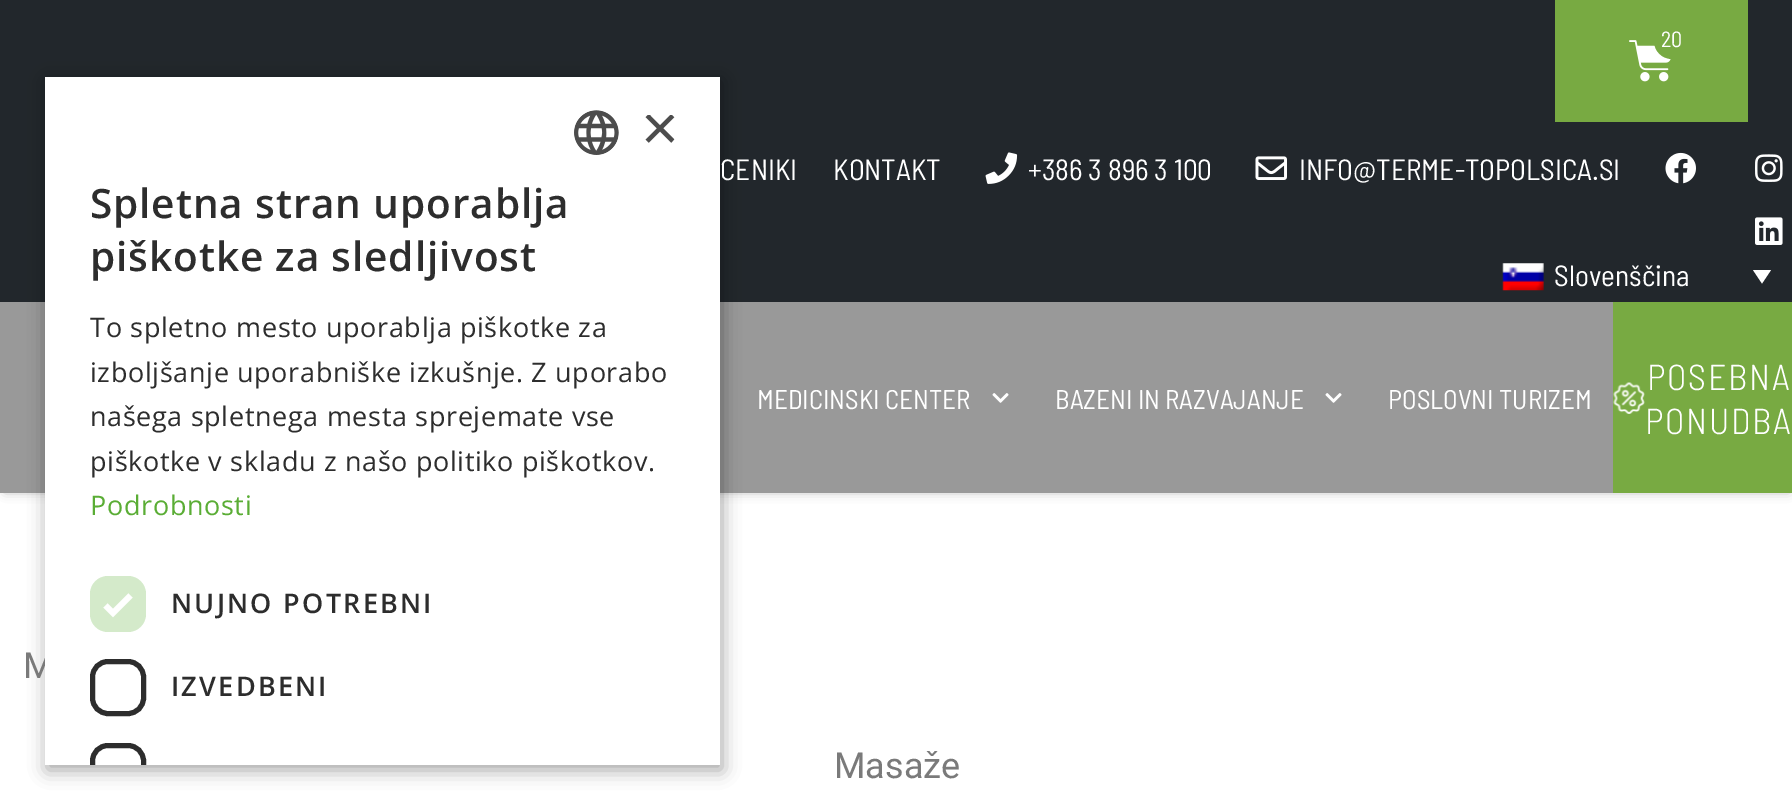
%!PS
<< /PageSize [1792 809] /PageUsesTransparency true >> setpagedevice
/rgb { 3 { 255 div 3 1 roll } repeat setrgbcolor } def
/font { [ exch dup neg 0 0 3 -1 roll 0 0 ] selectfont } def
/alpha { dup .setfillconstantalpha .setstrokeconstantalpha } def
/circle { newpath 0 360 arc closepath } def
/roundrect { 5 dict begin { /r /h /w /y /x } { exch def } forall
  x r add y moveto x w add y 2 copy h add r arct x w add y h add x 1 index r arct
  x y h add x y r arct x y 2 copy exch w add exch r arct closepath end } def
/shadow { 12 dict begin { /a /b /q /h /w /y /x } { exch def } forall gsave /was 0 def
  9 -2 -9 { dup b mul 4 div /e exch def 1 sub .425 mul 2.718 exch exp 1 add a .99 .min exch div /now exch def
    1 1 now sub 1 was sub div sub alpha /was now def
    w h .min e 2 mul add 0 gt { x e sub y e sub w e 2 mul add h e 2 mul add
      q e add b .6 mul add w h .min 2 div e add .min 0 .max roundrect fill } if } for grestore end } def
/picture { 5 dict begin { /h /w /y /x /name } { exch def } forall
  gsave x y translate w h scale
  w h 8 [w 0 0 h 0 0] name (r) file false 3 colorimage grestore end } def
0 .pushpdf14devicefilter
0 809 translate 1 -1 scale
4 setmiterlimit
255 255 255 rgb
0 0 1792 809 rectfill
gsave
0 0 moveto 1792 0 lineto 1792 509 lineto 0 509 lineto closepath 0 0 moveto 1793 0 lineto 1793 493 lineto 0 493 lineto closepath eoclip newpath
42 42 42 rgb
5 7 1784 484 0 5.5 0.4 shadow
grestore
0.4 alpha
0 0 0 rgb
0 302 1613 191 rectfill
1 alpha
34 39 44 rgb
0 0 1792 302 rectfill
0 0 0 rgb
47 81 675 689 0 9 0.35 shadow
120 170 66 rgb
1555 0 193 122 rectfill
(img/2.rgb) 1629 40 42 42 picture
1672 41 18 circle fill
(img/3.rgb) 985 152 33 32 picture
(img/4.rgb) 1255 156 32 24 picture
(img/5.rgb) 1665 152 31 32 picture
(img/6.rgb) 1755 154 28 28 picture
(img/7.rgb) 1755 217 28 28 picture
(img/8.rgb) 1502 263 42 28 picture
255 255 255 rgb
1753 270 moveto 1771 270 lineto 1762 283.5 lineto closepath fill
(img/9.rgb) 992 393 17 10 picture
(img/9.rgb) 1325 393 17 10 picture
120 170 66 rgb
1613 302 179 191 rectfill
(img/10.rgb) 1613 382 32 32 picture
/BarlowSemiCondensed-Regular 22 font
255 255 255 rgb
1661 47 moveto (20) show
/BarlowSemiCondensed-Regular 29.25 font
[
  [(CENIKI) 720 180]
  [(KONTAKT) 833 180]
  [(+386 3 896 3 100) 1028 180]
  [(INFO@TERME-TOPOLSICA.SI) 1299 180]
  [(Slovenščina) 1554 286]
] { aload pop moveto show } forall
/BarlowSemiCondensed-Regular 27 font
[
  [(MEDICINSKI CENTER) 757 409]
  [(BAZENI IN RAZVAJANJE) 1055 409]
  [(POSLOVNI TURIZEM) 1388 409]
] { aload pop moveto show } forall
/BarlowSemiCondensed-Light 36 font
1647 390 moveto 1.75 0 (POSEBNA) ashow
1645 434 moveto 1.75 0 (PONUDBA) ashow
/Roboto-Regular 36 font
122 122 122 rgb
23 678 moveto (M) show
255 255 255 rgb
45 77 675 688 rectfill
gsave
641 115 34 34 rectclip
/LiberationSans-Regular 65 font
77 77 77 rgb
641 150 moveto (×) show
grestore
gsave
45 77 675 688 rectclip
45 45 45 rgb
5 setlinewidth
92.5 745.5 51 51 15.5 roundrect stroke
grestore
45 45 45 rgb
5 setlinewidth
92.5 661.5 51 52 15.5 roundrect stroke
212 234 202 rgb
90 576 56 56 18 roundrect fill
255 255 255 rgb
5.9 setlinewidth
105.5 605.5 moveto 113 613 lineto 130.5 595.5 lineto stroke
(img/1.rgb) 574 110 45 45 picture
/OpenSans-SemiBold 27 font
45 45 45 rgb
171 696 moveto 2.25 0 (IZVEDBENI) ashow
171 613 moveto 2.25 0 (NUJNO POTREBNI) ashow
/OpenSans-Regular 27 font
90 173 53 rgb
90 515 moveto 0.65 0 (Podrobnosti) ashow
45 45 45 rgb
90 471 moveto 0.65 0 (piškotke v skladu z našo politiko piškotkov.) ashow
90 426 moveto 0.65 0 (našega spletnega mesta sprejemate vse) ashow
90 382 moveto 0.65 0 (izboljšanje uporabniške izkušnje. Z uporabo) ashow
90 337 moveto 0.65 0 (To spletno mesto uporablja piškotke za) ashow
/OpenSans-SemiBold 40.5 font
90 271 moveto 0.9 0 (piškotke za sledljivost) ashow
90 218 moveto 0.9 0 (Spletna stran uporablja) ashow
/Roboto-Regular 36 font
122 122 122 rgb
834 778 moveto (Masaže) show
.poppdf14devicefilter showpage
